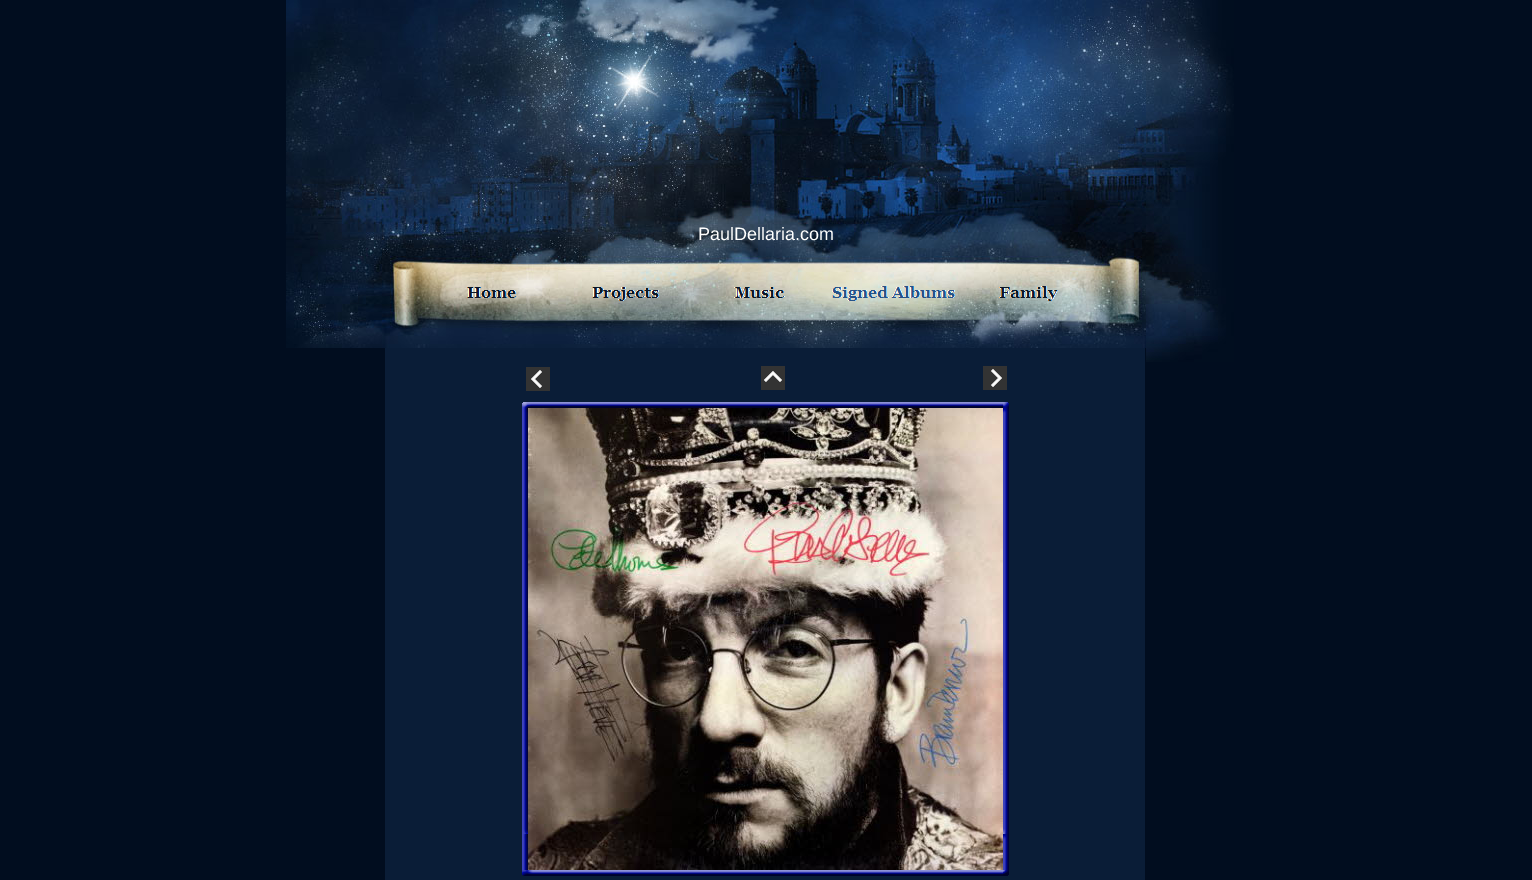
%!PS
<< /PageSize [1532 880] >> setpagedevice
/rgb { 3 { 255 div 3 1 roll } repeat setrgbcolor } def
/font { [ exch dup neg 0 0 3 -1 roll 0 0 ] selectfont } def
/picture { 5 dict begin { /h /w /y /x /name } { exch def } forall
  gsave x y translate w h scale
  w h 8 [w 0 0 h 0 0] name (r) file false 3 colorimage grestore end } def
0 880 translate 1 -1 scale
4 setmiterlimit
1 13 31 rgb
0 0 1532 880 rectfill
10 29 55 rgb
385 348 760 532 rectfill
(img/1.rgb) 286 0 860 348 picture
(img/2.rgb) 467 287 49 11 picture
(img/3.rgb) 592 287 67 14 picture
(img/4.rgb) 734 287 51 11 picture
(img/5.rgb) 832 286 123 15 picture
(img/6.rgb) 999 286 59 15 picture
(img/7.rgb) 526 367 24 24 picture
(img/8.rgb) 761 366 24 24 picture
(img/9.rgb) 983 366 24 24 picture
(img/10.rgb) 522 402 6 6 picture
(img/11.rgb) 528 402 475 6 picture
(img/12.rgb) 1003 402 6 6 picture
(img/13.rgb) 522 408 6 462 picture
(img/14.rgb) 528 408 475 462 picture
(img/15.rgb) 1003 408 6 462 picture
(img/16.rgb) 522 870 6 6 picture
(img/17.rgb) 528 870 475 6 picture
(img/18.rgb) 1003 870 6 6 picture
(img/19.rgb) 1146 0 88 362 picture
/LiberationSans-Regular 18 font
255 255 254 rgb
698 240 moveto (PaulDellaria.com) show
showpage
